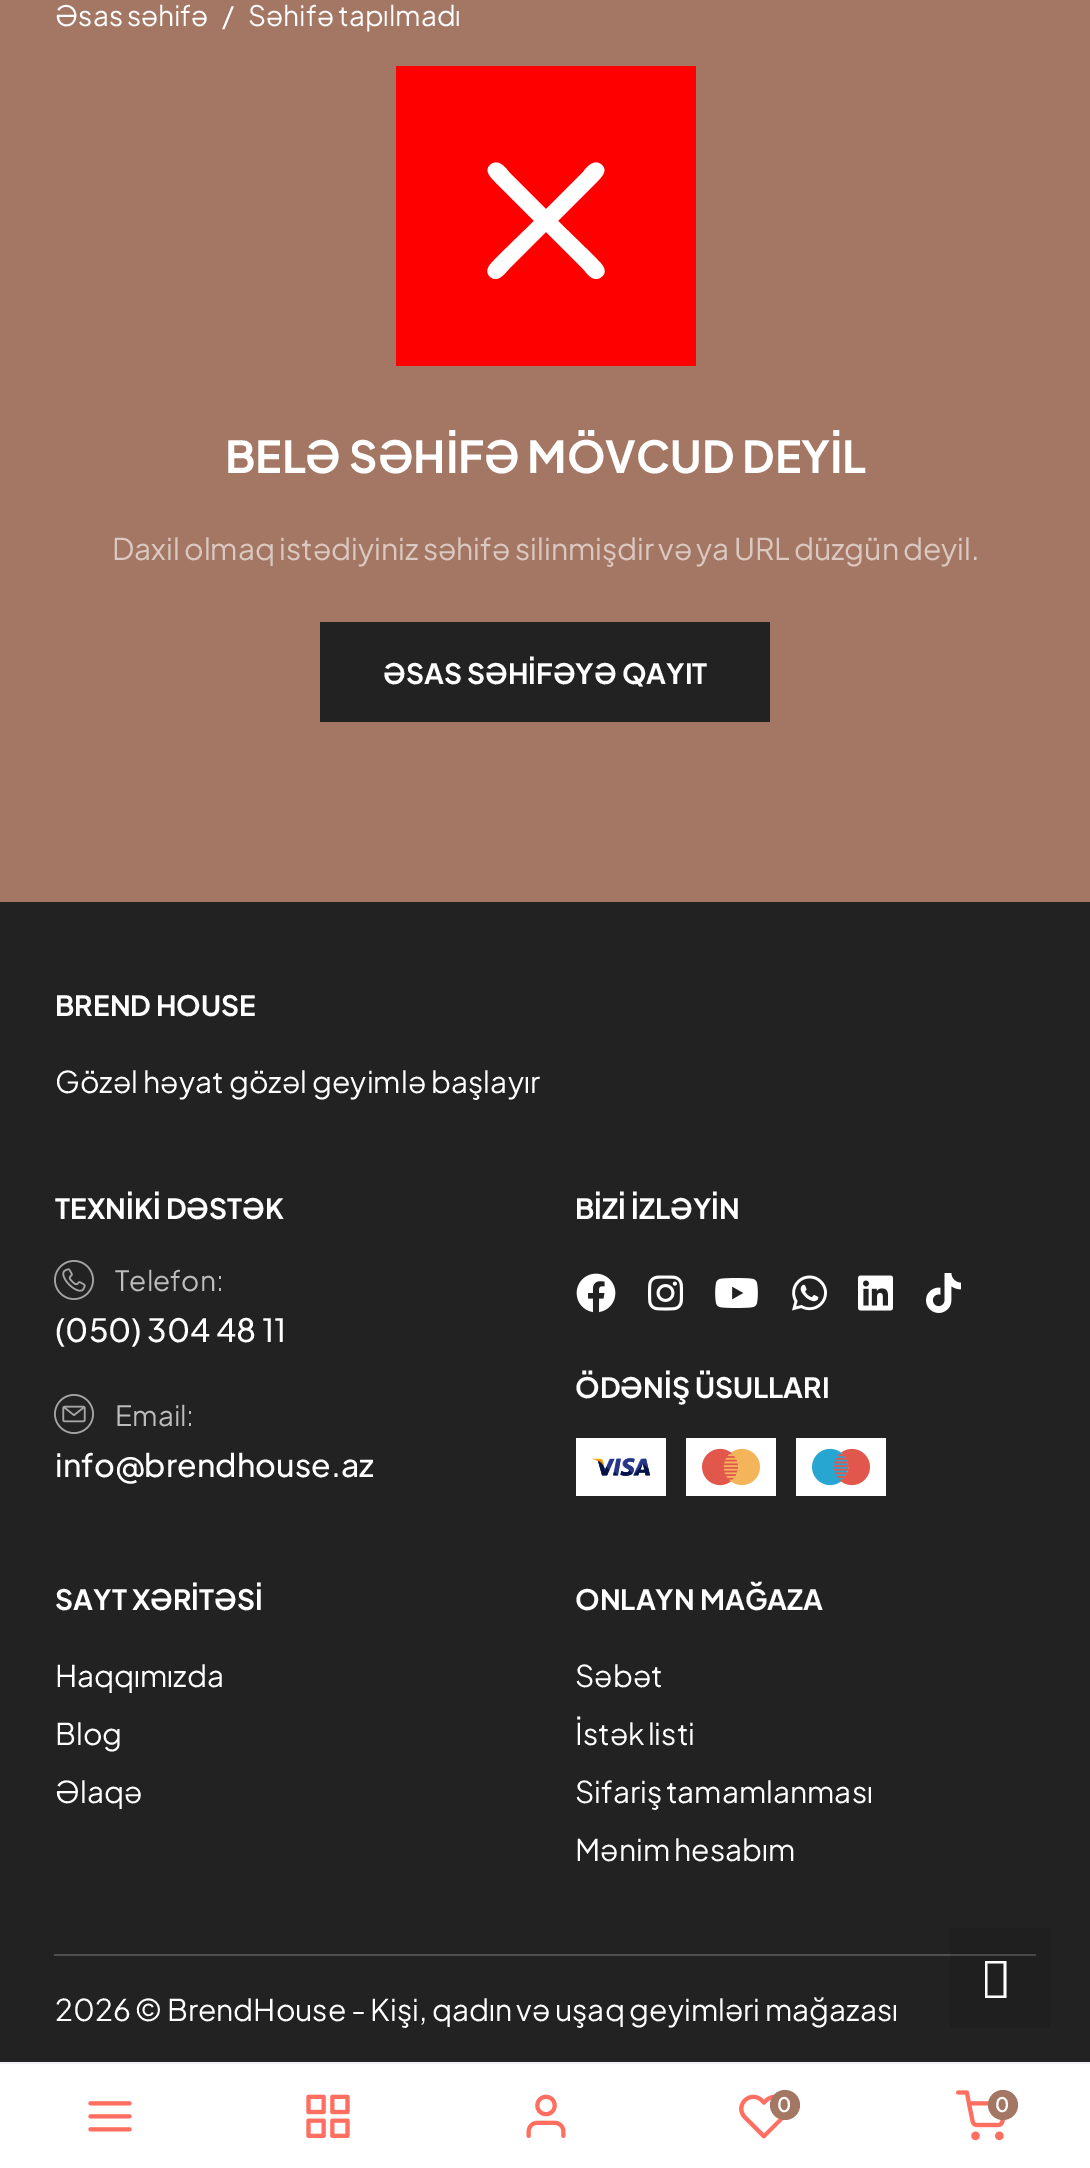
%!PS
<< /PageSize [1090 2168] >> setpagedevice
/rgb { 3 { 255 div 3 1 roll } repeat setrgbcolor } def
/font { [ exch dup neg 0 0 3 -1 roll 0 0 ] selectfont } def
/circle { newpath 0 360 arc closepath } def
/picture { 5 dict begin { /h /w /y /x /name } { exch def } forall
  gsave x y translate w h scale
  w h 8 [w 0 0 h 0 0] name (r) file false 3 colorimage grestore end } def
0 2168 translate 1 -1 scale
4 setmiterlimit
164 119 100 rgb
0 0 1090 2168 rectfill
255 0 0 rgb
396 66 300 300 rectfill
255 255 255 rgb
558 221 moveto 595 184 lineto 599 179 609 172 602 165 curveto 594 158 587 167 583 172 curveto 546 209 lineto 509 172 lineto 505 167 498 158 490 165 curveto 483 172 493 179 497 184 curveto 534 221 lineto 497 257 lineto 494 261 485 267 488 274 curveto 489 276 490 277 492 278 curveto 499 282 505 273 509 269 curveto 546 232 lineto 583 269 lineto 587 273 592 282 600 278 curveto 601 277 603 276 604 274 curveto 607 267 598 261 595 257 curveto closepath fill
[
  [320 622 450 100 34 34 34]
  [0 902 1090 1160 34 34 34]
  [950 1928 100 100 31 31 31]
] { aload pop rgb rectfill } forall
(img/1.rgb) 54 1260 40 40 picture
(img/2.rgb) 54 1394 40 40 picture
(img/3.rgb) 576 1273 40 40 picture
(img/4.rgb) 648 1275 35 36 picture
(img/5.rgb) 715 1278 43 30 picture
(img/6.rgb) 792 1275 35 36 picture
(img/7.rgb) 858 1275 35 36 picture
(img/8.rgb) 926 1273 35 40 picture
255 255 255 rgb
576 1438 90 58 rectfill
(img/9.rgb) 592 1458 58 18 picture
686 1438 90 58 rectfill
(img/10.rgb) 702 1448 58 38 picture
796 1438 90 58 rectfill
(img/11.rgb) 812 1448 58 38 picture
80 80 80 rgb
54 1954 896 2 rectfill
72 72 72 rgb
950 1954 86 2 rectfill
255 255 255 rgb
985 1998 moveto 985 1961 lineto 1006.5 1961 lineto 1006.5 1998 lineto closepath 987.5 1995.5 moveto 1003.5 1995.5 lineto 1003.5 1963.5 lineto 987.5 1963.5 lineto closepath fill
0 2064 1090 104 rectfill
240 242 245 rgb
0 2062 1090 2 rectfill
(img/12.rgb) 88 2101 44 31 picture
(img/13.rgb) 306 2094 44 44 picture
(img/14.rgb) 526 2094 40 44 picture
(img/15.rgb) 739 2094 45 45 picture
164 119 100 rgb
785 2105 15 circle fill
(img/16.rgb) 956 2090 50 51 picture
1003 2105 15 circle fill
/PlusJakartaSans-Regular 28 font
255 255 255 rgb
55 26 moveto -1 0 32 (Əsas səhifə) widthshow
222 26 moveto (/) show
248 26 moveto -1 0 32 (Səhifə tapılmadı) widthshow
/PlusJakartaSans-Bold 44 font
225 473 moveto (BELƏ SƏHİFƏ MÖVCUD DEYİL) show
/PlusJakartaSans-Regular 30 font
219 201 193 rgb
112 560 moveto -1 0 32 (Daxil olmaq istədiyiniz səhifə silinmişdir və ya URL düzgün deyil.) widthshow
/PlusJakartaSans-Bold 28 font
255 255 255 rgb
383 684 moveto (ƏSAS SƏHİFƏYƏ QAYIT) show
55 1016 moveto (BREND HOUSE) show
/PlusJakartaSans-Regular 30 font
55 1093 moveto (Gözəl həyat gözəl geyimlə başlayır) show
/PlusJakartaSans-Bold 28 font
55 1219 moveto (TEXNİKİ DƏSTƏK) show
/PlusJakartaSans-Regular 28 font
189 189 189 rgb
115 1291 moveto (Telefon:) show
/PlusJakartaSans-Medium 32 font
255 255 255 rgb
55 1342 moveto (\(050\) 304 48 11) show
/PlusJakartaSans-Regular 28 font
189 189 189 rgb
115 1426 moveto (Email:) show
/PlusJakartaSans-Medium 32 font
255 255 255 rgb
55 1477 moveto (info@brendhouse.az) show
/PlusJakartaSans-Bold 28 font
[
  [(BİZİ İZLƏYİN) 575 1219]
  [(ÖDƏNİŞ ÜSULLARI) 575 1398]
  [(SAYT XƏRİTƏSİ) 55 1610]
] { aload pop moveto show } forall
/PlusJakartaSans-Regular 30 font
[
  [(Haqqımızda) 55 1687]
  [(Blog) 55 1745]
  [(Əlaqə) 55 1803]
] { aload pop moveto show } forall
/PlusJakartaSans-Bold 28 font
575 1610 moveto (ONLAYN MAĞAZA) show
/PlusJakartaSans-Regular 30 font
575 1687 moveto (Səbət) show
575 1745 moveto -2 0 32 (İstək listi) widthshow
575 1803 moveto -2 0 32 (Sifariş tamamlanması) widthshow
575 1861 moveto -1 0 32 (Mənim hesabım) widthshow
55 2021 moveto -0.5 0 32 (2026 © BrendHouse - Kişi, qadın və uşaq geyimləri mağazası) widthshow
/PlusJakartaSans-SemiBold 20 font
777 2112 moveto (0) show
995 2112 moveto (0) show
showpage
